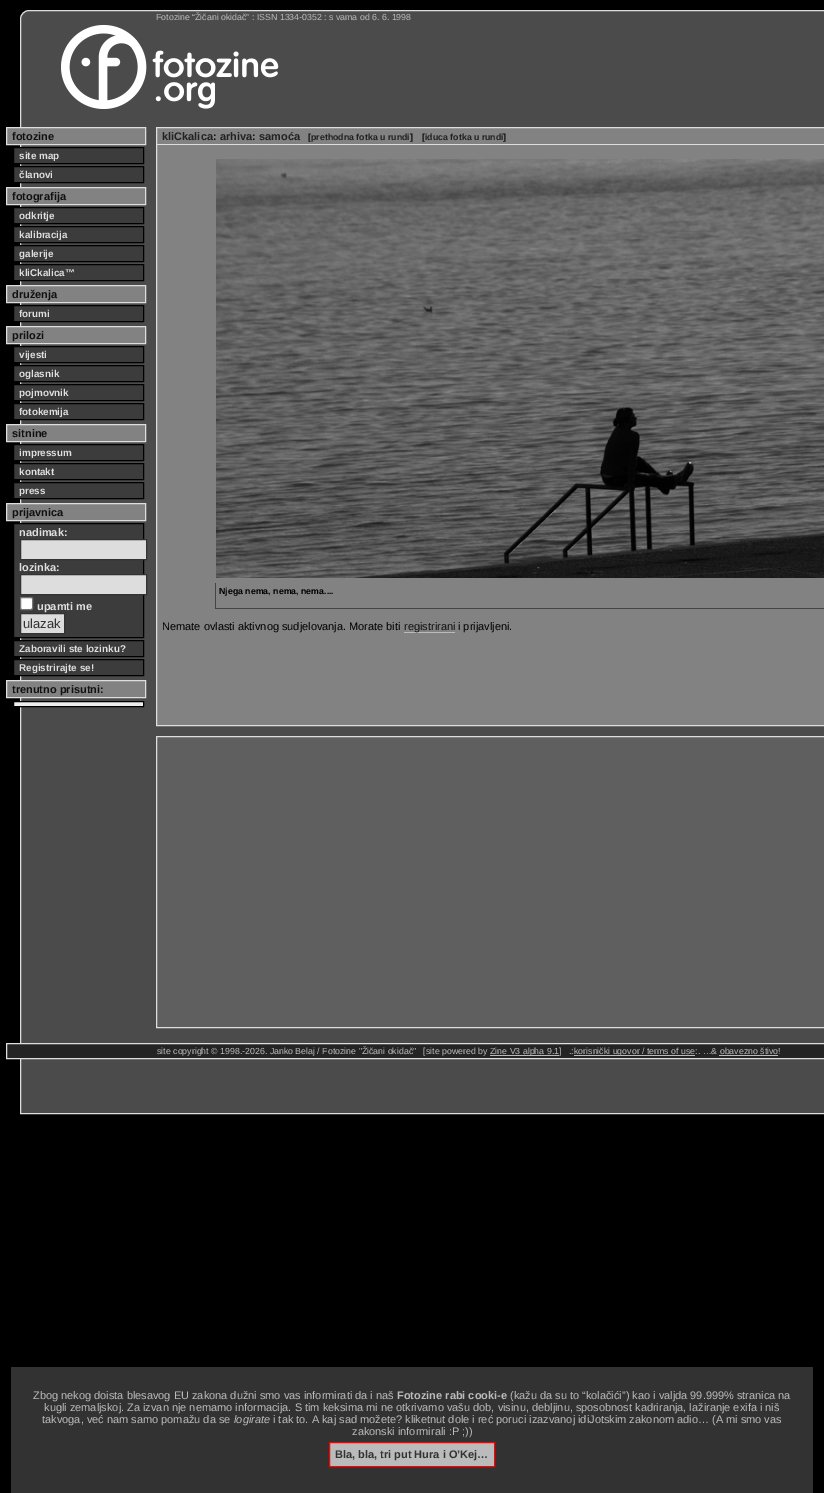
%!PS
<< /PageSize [824 1493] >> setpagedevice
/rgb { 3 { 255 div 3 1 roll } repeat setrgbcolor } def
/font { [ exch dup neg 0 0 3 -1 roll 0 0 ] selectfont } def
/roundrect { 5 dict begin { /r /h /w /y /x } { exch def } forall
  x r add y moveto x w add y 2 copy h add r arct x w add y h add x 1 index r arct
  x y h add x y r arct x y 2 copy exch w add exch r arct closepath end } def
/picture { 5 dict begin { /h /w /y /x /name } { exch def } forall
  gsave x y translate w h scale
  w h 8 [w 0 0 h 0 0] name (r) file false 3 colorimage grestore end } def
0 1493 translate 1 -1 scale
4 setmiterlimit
0 0 0 rgb
0 0 824 1493 rectfill
75 75 75 rgb
29 10.5 moveto 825 10.5 lineto 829.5 10.5 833.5 14.5 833.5 19 curveto 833.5 1113.5 lineto 20.5 1113.5 lineto 20.5 19 lineto 20.5 14.5 24.5 10.5 29 10.5 curveto closepath gsave fill grestore
222 222 222 rgb
stroke
(img/1.rgb) 61 25 218 84 picture
130 130 130 rgb
6.5 127.5 moveto 145.5 127.5 lineto 145.5 144.5 lineto 6.5 144.5 lineto closepath gsave fill grestore
222 222 222 rgb
stroke
60 60 60 rgb
13.5 147.5 moveto 143.5 147.5 lineto 143.5 163.5 lineto 13.5 163.5 lineto closepath gsave fill grestore
0 0 0 rgb
stroke
60 60 60 rgb
13.5 166.5 moveto 143.5 166.5 lineto 143.5 182.5 lineto 13.5 182.5 lineto closepath gsave fill grestore
0 0 0 rgb
stroke
130 130 130 rgb
6.5 187.5 moveto 145.5 187.5 lineto 145.5 204.5 lineto 6.5 204.5 lineto closepath gsave fill grestore
222 222 222 rgb
stroke
60 60 60 rgb
13.5 207.5 moveto 143.5 207.5 lineto 143.5 223.5 lineto 13.5 223.5 lineto closepath gsave fill grestore
0 0 0 rgb
stroke
60 60 60 rgb
13.5 226.5 moveto 143.5 226.5 lineto 143.5 242.5 lineto 13.5 242.5 lineto closepath gsave fill grestore
0 0 0 rgb
stroke
60 60 60 rgb
13.5 245.5 moveto 143.5 245.5 lineto 143.5 261.5 lineto 13.5 261.5 lineto closepath gsave fill grestore
0 0 0 rgb
stroke
60 60 60 rgb
13.5 264.5 moveto 143.5 264.5 lineto 143.5 280.5 lineto 13.5 280.5 lineto closepath gsave fill grestore
0 0 0 rgb
stroke
130 130 130 rgb
6.5 285.5 moveto 145.5 285.5 lineto 145.5 302.5 lineto 6.5 302.5 lineto closepath gsave fill grestore
222 222 222 rgb
stroke
60 60 60 rgb
13.5 305.5 moveto 143.5 305.5 lineto 143.5 321.5 lineto 13.5 321.5 lineto closepath gsave fill grestore
0 0 0 rgb
stroke
130 130 130 rgb
6.5 326.5 moveto 145.5 326.5 lineto 145.5 343.5 lineto 6.5 343.5 lineto closepath gsave fill grestore
222 222 222 rgb
stroke
60 60 60 rgb
13.5 346.5 moveto 143.5 346.5 lineto 143.5 362.5 lineto 13.5 362.5 lineto closepath gsave fill grestore
0 0 0 rgb
stroke
60 60 60 rgb
13.5 365.5 moveto 143.5 365.5 lineto 143.5 381.5 lineto 13.5 381.5 lineto closepath gsave fill grestore
0 0 0 rgb
stroke
60 60 60 rgb
13.5 384.5 moveto 143.5 384.5 lineto 143.5 400.5 lineto 13.5 400.5 lineto closepath gsave fill grestore
0 0 0 rgb
stroke
60 60 60 rgb
13.5 403.5 moveto 143.5 403.5 lineto 143.5 419.5 lineto 13.5 419.5 lineto closepath gsave fill grestore
0 0 0 rgb
stroke
130 130 130 rgb
6.5 424.5 moveto 145.5 424.5 lineto 145.5 441.5 lineto 6.5 441.5 lineto closepath gsave fill grestore
222 222 222 rgb
stroke
60 60 60 rgb
13.5 444.5 moveto 143.5 444.5 lineto 143.5 460.5 lineto 13.5 460.5 lineto closepath gsave fill grestore
0 0 0 rgb
stroke
60 60 60 rgb
13.5 463.5 moveto 143.5 463.5 lineto 143.5 479.5 lineto 13.5 479.5 lineto closepath gsave fill grestore
0 0 0 rgb
stroke
60 60 60 rgb
13.5 482.5 moveto 143.5 482.5 lineto 143.5 498.5 lineto 13.5 498.5 lineto closepath gsave fill grestore
0 0 0 rgb
stroke
130 130 130 rgb
6.5 503.5 moveto 145.5 503.5 lineto 145.5 520.5 lineto 6.5 520.5 lineto closepath gsave fill grestore
222 222 222 rgb
stroke
60 60 60 rgb
13.5 523.5 moveto 143.5 523.5 lineto 143.5 637.5 lineto 13.5 637.5 lineto closepath gsave fill grestore
0 0 0 rgb
stroke
221 221 221 rgb
20.5 539.5 moveto 146.5 539.5 lineto 146.5 559.5 lineto 20.5 559.5 lineto closepath gsave fill grestore
51 51 51 rgb
stroke
221 221 221 rgb
20.5 574.5 moveto 146.5 574.5 lineto 146.5 594.5 lineto 20.5 594.5 lineto closepath gsave fill grestore
51 51 51 rgb
stroke
255 255 255 rgb
20.5 597.5 12 12 1.5 roundrect gsave fill grestore
118 118 118 rgb
stroke
221 221 221 rgb
20.5 613.5 moveto 64.5 613.5 lineto 64.5 633.5 lineto 20.5 633.5 lineto closepath gsave fill grestore
51 51 51 rgb
stroke
60 60 60 rgb
13.5 640.5 moveto 143.5 640.5 lineto 143.5 656.5 lineto 13.5 656.5 lineto closepath gsave fill grestore
0 0 0 rgb
stroke
60 60 60 rgb
13.5 659.5 moveto 143.5 659.5 lineto 143.5 675.5 lineto 13.5 675.5 lineto closepath gsave fill grestore
0 0 0 rgb
stroke
130 130 130 rgb
6.5 680.5 moveto 145.5 680.5 lineto 145.5 697.5 lineto 6.5 697.5 lineto closepath gsave fill grestore
222 222 222 rgb
stroke
238 238 238 rgb
13.5 701.5 moveto 143.5 701.5 lineto 143.5 706.5 lineto 13.5 706.5 lineto closepath gsave fill grestore
0 0 0 rgb
stroke
130 130 130 rgb
156.5 127.5 moveto 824.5 127.5 lineto 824.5 725.5 lineto 156.5 725.5 lineto closepath gsave fill grestore
222 222 222 rgb
stroke
157 144 667 1 rectfill
(img/2.rgb) 216 159 608 419 picture
[
  [215 608 609 1 68 68 68]
  [215 583 1 26 68 68 68]
  [404 632 51 1 187 187 187]
] { aload pop rgb rectfill } forall
95 95 95 rgb
156.5 736.5 moveto 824.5 736.5 lineto 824.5 1027.5 lineto 156.5 1027.5 lineto closepath gsave fill grestore
222 222 222 rgb
stroke
36 36 36 rgb
6.5 1043.5 moveto 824.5 1043.5 lineto 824.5 1058.5 lineto 6.5 1058.5 lineto closepath gsave fill grestore
222 222 222 rgb
stroke
[
  [490 1055 69 1 187 187 187]
  [574 1055 121 1 187 187 187]
  [719 1055 59 1 187 187 187]
  [11 1367 802 126 50 50 50]
] { aload pop rgb rectfill } forall
187 187 187 rgb
329.5 1442.5 moveto 494.5 1442.5 lineto 494.5 1466.5 lineto 329.5 1466.5 lineto closepath gsave fill grestore
255 0 0 rgb
stroke
/LiberationSans-Regular 8.8 font
187 187 187 rgb
156 20 moveto (Fotozine “Žičani okidač” : ISSN 1334-0352 : s vama od 6. 6. 1998) show
/LiberationSans-Bold 11 font
17 17 17 rgb
12 140 moveto (fotozine) show
/LiberationSans-Bold 9.9 font
223 223 223 rgb
19 159 moveto (site map) show
19 178 moveto (članovi) show
/LiberationSans-Bold 11 font
17 17 17 rgb
12 200 moveto (fotografija) show
/LiberationSans-Bold 9.9 font
223 223 223 rgb
[
  [(odkritje) 19 219]
  [(kalibracija) 19 238]
  [(galerije) 19 257]
  [(kliCkalica™) 19 276]
] { aload pop moveto show } forall
/LiberationSans-Bold 11 font
17 17 17 rgb
12 298 moveto (druženja) show
/LiberationSans-Bold 9.9 font
223 223 223 rgb
19 317 moveto (forumi) show
/LiberationSans-Bold 11 font
17 17 17 rgb
12 339 moveto (prilozi) show
/LiberationSans-Bold 9.9 font
223 223 223 rgb
[
  [(vijesti) 19 358]
  [(oglasnik) 19 377]
  [(pojmovnik) 19 396]
  [(fotokemija) 19 415]
] { aload pop moveto show } forall
/LiberationSans-Bold 11 font
17 17 17 rgb
12 437 moveto (sitnine) show
/LiberationSans-Bold 9.9 font
223 223 223 rgb
[
  [(impressum) 19 456]
  [(kontakt) 19 475]
  [(press) 19 494]
] { aload pop moveto show } forall
/LiberationSans-Bold 11 font
17 17 17 rgb
12 516 moveto (prijavnica) show
223 223 223 rgb
[
  [(nadimak:) 19 536]
  [(lozinka:) 19 571]
  [(upamti me) 37 610]
] { aload pop moveto show } forall
/LiberationSans-Regular 13 font
51 51 51 rgb
23 628 moveto (ulazak) show
/LiberationSans-Bold 9.9 font
223 223 223 rgb
19 652 moveto (Zaboravili ste lozinku?) show
19 671 moveto (Registrirajte se!) show
/LiberationSans-Bold 11 font
17 17 17 rgb
12 693 moveto (trenutno prisutni:) show
34 34 34 rgb
162 140 moveto (kliCkalica) show
17 17 17 rgb
213 140 moveto (:) show
34 34 34 rgb
220 140 moveto (arhiva) show
17 17 17 rgb
252 140 moveto (:) show
34 34 34 rgb
259 140 moveto (samoća) show
/LiberationSans-Bold 8.8 font
17 17 17 rgb
308 140 moveto ([) show
34 34 34 rgb
311 140 moveto (prethodna fotka u rundi) show
17 17 17 rgb
410 140 moveto (]) show
422 140 moveto ([) show
34 34 34 rgb
425 140 moveto (iduca fotka u rundi) show
17 17 17 rgb
503 140 moveto (]) show
0 0 0 rgb
219 594 moveto (Njega nema, nema, nema....) show
/LiberationSans-Regular 11 font
162 630 moveto (Nemate ovlasti aktivnog sudjelovanja. Morate biti) show
17 17 17 rgb
404 630 moveto (registrirani) show
0 0 0 rgb
458 630 moveto (i prijavljeni.) show
/LiberationSans-Regular 8.8 font
187 187 187 rgb
[
  [(site copyright © 1998.-2026. Janko Belaj / Fotozine "Žičani okidač"   [site powered by) 157 1054]
  [(Zine V3 alpha 9.1]   .:) 490 1054]
  [(korisnički ugovor / terms of use:. …& obavezno štivo!) 574 1054]
] { aload pop moveto show } forall
/LiberationSans-Regular 11 font
33 1399 moveto (Zbog nekog doista blesavog EU zakona dužni smo vas informirati da i naš) show
/LiberationSans-Bold 11 font
397 1399 moveto (Fotozine rabi cooki-e) show
/LiberationSans-Regular 11 font
[
  [(\(kažu da su to “kolačići”\) kao i valjda 99.999% stranica na) 510 1399]
  [(kugli zemaljskoj. Za izvan nje nemamo informacija. S tim keksima mi ne otkrivamo vašu dob, visinu, debljinu, sposobnost kadriranja, lažiranje exifa i niš) 44 1411]
  [(takvoga, već nam samo pomažu da se) 42 1423]
] { aload pop moveto show } forall
/LiberationSans-Italic 11 font
234 1423 moveto (logirate) show
/LiberationSans-Regular 11 font
273 1423 moveto (i tak to. A kaj sad možete? kliketnut dole i reć poruci izazvanoj idiJotskim zakonom adio… \(A mi smo vas) show
352 1435 moveto (zakonski informirali :P ;\)\)) show
/LiberationSans-Bold 11 font
51 51 51 rgb
335 1458 moveto (Bla, bla, tri put Hura i O’Kej…) show
showpage
